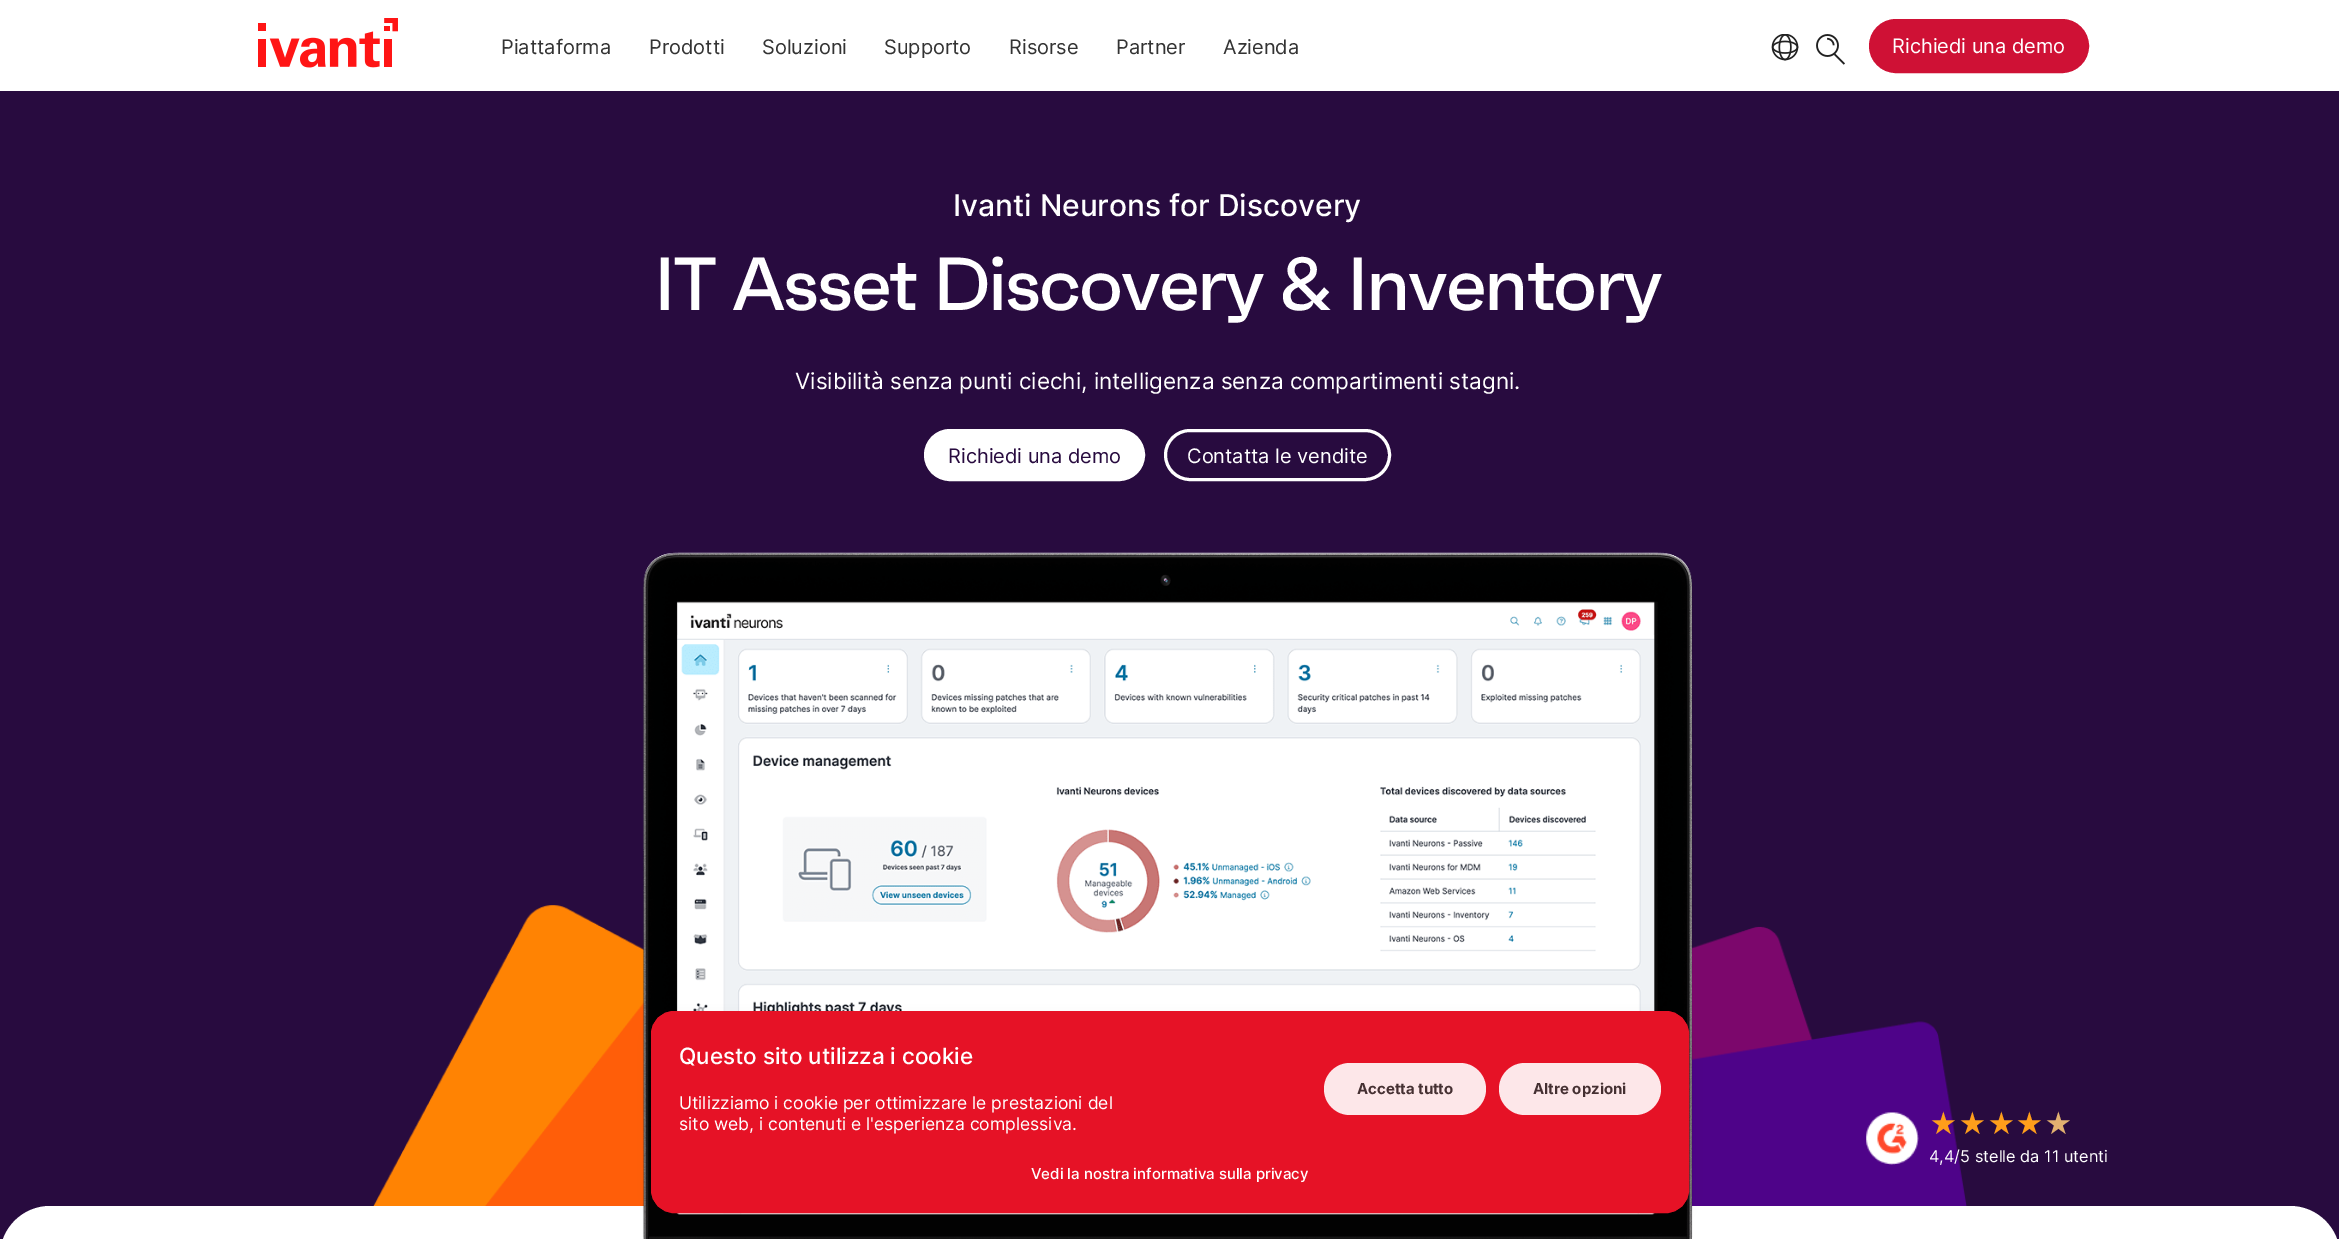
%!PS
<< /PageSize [2339 1239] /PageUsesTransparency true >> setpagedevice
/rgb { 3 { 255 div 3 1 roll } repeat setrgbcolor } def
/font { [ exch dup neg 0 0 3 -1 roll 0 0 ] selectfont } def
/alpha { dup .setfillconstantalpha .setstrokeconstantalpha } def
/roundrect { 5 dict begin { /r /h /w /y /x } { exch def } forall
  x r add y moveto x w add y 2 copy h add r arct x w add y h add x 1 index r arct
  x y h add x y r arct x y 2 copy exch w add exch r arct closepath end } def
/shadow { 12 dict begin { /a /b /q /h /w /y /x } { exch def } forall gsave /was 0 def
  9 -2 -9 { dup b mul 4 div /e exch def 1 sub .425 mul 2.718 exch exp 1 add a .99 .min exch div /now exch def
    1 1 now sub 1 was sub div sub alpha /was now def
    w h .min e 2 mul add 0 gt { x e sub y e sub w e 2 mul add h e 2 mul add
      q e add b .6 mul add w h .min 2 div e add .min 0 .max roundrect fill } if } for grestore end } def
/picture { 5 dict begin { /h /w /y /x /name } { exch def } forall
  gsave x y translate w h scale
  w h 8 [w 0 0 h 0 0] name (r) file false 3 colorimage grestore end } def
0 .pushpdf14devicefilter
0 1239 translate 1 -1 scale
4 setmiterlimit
40 11 63 rgb
0 0 2339 1239 rectfill
255 255 255 rgb
0 0 2339 91 rectfill
(img/1.rgb) 258 18 140 50 picture
(img/2.rgb) 1771 34 28 27 picture
(img/3.rgb) 1816 34 29 31 picture
207 17 53 rgb
1870.5 20.5 217 51 25.5 roundrect gsave fill grestore
3 setlinewidth
stroke
(img/4.rgb) 373 905 1595 301 picture
255 255 255 rgb
925.5 430.5 218 49 24.5 roundrect gsave fill grestore
stroke
1165.5 430.5 224 49 24.5 roundrect stroke
50 1206 moveto 2290 1206 lineto 2317.5 1206 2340 1228.5 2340 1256 curveto 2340 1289 lineto 0 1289 lineto 0 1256 lineto 0 1228.5 22.5 1206 50 1206 curveto closepath fill
(img/5.rgb) 642 552 1051 687 picture
(img/6.rgb) 1866 1112 53 53 picture
0 0 0 rgb
651 1018 1038 201 23 6 0.1 shadow
230 18 38 rgb
651.5 1011.5 1037 201 22.5 roundrect gsave fill grestore
1 setlinewidth
stroke
253 231 233 rgb
1324 1063 162 52 26 roundrect fill
1499 1063 162 52 26 roundrect fill
/Inter-Regular 20 font
51 51 51 rgb
[
  [(Piattaforma) 501 54]
  [(Prodotti) 649 54]
  [(Soluzioni) 762 54]
  [(Supporto) 884 54]
  [(Risorse) 1009 54]
  [(Partner) 1116 54]
  [(Azienda) 1223 54]
] { aload pop moveto show } forall
255 255 255 rgb
1892 53 moveto (Richiedi una demo) show
/Inter-Medium 30 font
953 216 moveto (Ivanti Neurons for Discovery) show
/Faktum-Medium 75 font
654 310 moveto -2.25 0 (IT Asset Discovery & Inventory) ashow
/Inter-Regular 22.5 font
795 389 moveto (Visibilità senza punti ciechi, intelligenza senza compartimenti stagni.) show
/Inter-Regular 20 font
40 11 63 rgb
948 463 moveto (Richiedi una demo) show
255 255 255 rgb
1187 463 moveto (Contatta le vendite) show
/Inter-Regular 27.5 font
255 158 27 rgb
1929 1134 moveto (★★★★) show
226 177 112 rgb
2044 1134 moveto (★) show
/Inter-Regular 16.25 font
255 255 255 rgb
1929 1162 moveto (4,4/5 stelle da 11 utenti) show
/Inter-Medium 22.5 font
679 1064 moveto (Questo sito utilizza i cookie) show
/Inter-Regular 17.5 font
679 1109 moveto (Utilizziamo i cookie per ottimizzare le prestazioni del) show
679 1130 moveto (sito web, i contenuti e l'esperienza complessiva.) show
/Inter-Bold 15 font
69 48 50 rgb
1357 1094 moveto (Accetta tutto) show
1533 1094 moveto (Altre opzioni) show
/Inter-Medium 15 font
255 255 255 rgb
1031 1179 moveto (Vedi la nostra informativa sulla privacy) show
.poppdf14devicefilter showpage
